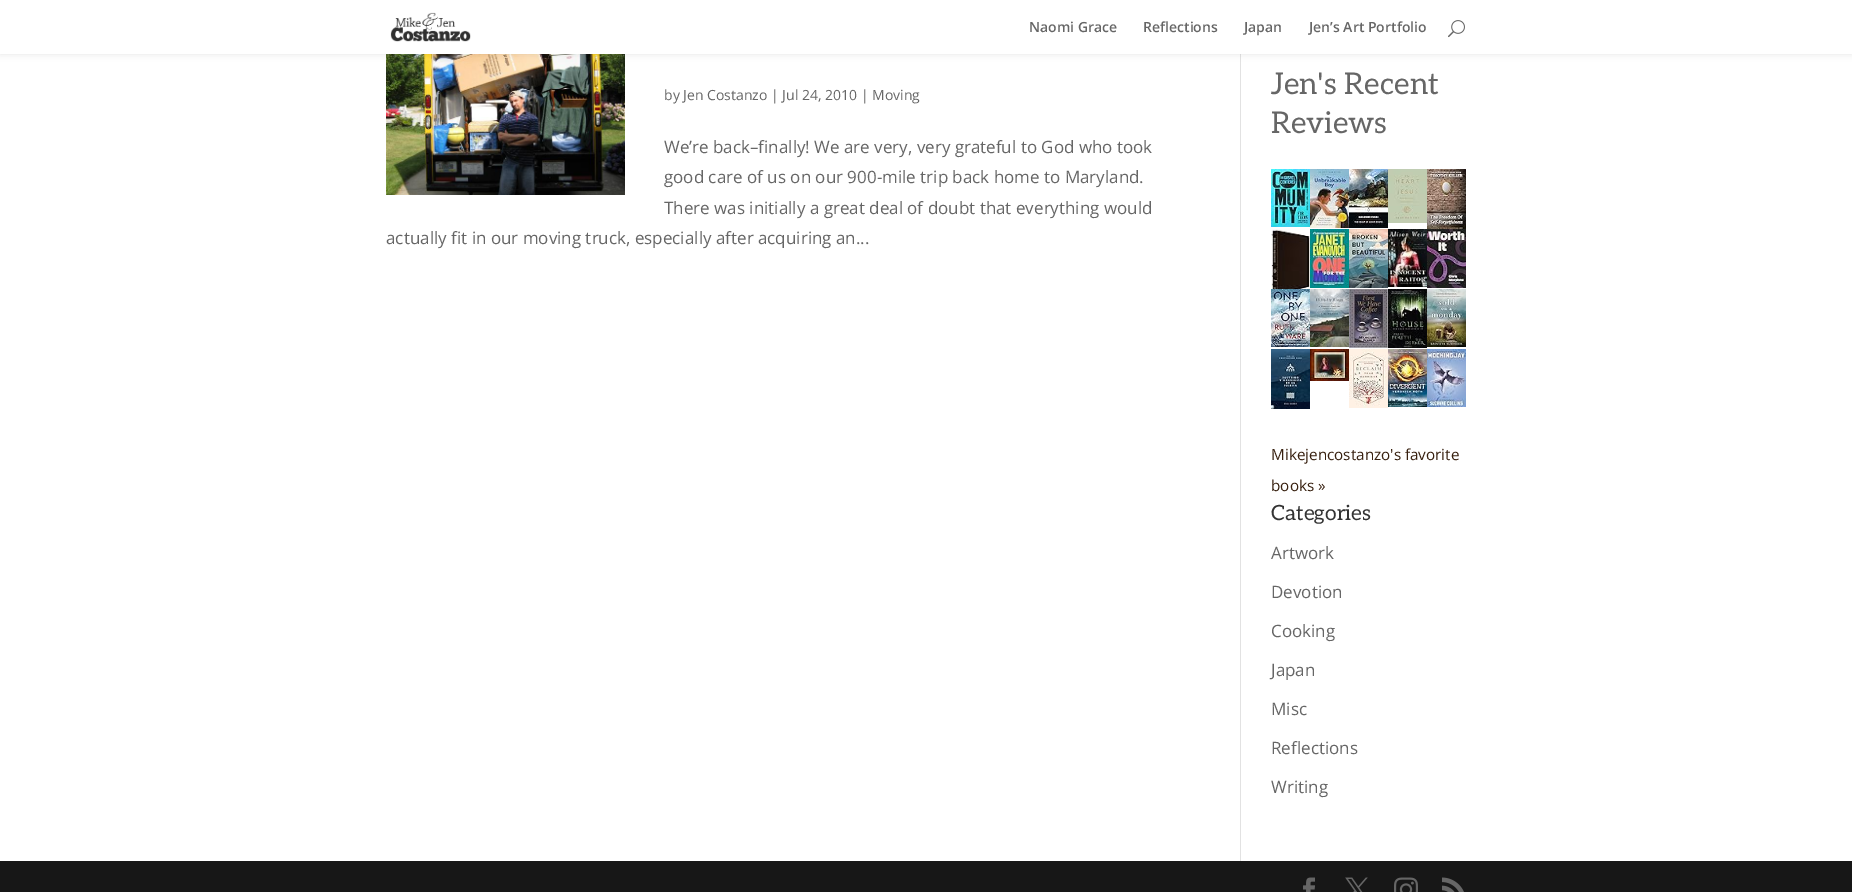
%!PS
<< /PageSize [1852 892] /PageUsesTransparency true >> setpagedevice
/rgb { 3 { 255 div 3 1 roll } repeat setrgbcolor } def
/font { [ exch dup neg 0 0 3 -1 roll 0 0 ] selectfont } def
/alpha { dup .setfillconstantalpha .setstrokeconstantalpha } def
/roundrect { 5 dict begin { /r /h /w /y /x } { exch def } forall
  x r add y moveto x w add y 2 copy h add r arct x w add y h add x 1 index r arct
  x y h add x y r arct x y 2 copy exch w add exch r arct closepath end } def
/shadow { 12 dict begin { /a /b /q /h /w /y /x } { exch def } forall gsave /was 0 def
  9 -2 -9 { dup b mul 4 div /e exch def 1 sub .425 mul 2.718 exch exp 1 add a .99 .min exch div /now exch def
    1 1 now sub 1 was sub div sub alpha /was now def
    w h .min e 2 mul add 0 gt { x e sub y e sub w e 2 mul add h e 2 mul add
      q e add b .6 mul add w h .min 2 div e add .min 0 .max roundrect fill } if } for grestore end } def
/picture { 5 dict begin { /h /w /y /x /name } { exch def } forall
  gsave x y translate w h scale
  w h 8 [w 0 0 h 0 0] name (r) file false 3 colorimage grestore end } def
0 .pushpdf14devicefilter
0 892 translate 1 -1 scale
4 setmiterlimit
255 255 255 rgb
0 0 1852 892 rectfill
226 226 226 rgb
1240 54 1 807 rectfill
(img/3.rgb) 386 54 239 141 picture
0 0 0 rgb
0 0 1852 54 0 3.5 0.1 shadow
255 255 255 rgb
0 0 1852 54 rectfill
(img/1.rgb) 390 12 81 30 picture
(img/2.rgb) 1448 20 17 18 picture
(img/4.rgb) 1271 169 39 58 picture
(img/5.rgb) 1310 169 39 59 picture
(img/6.rgb) 1349 169 39 59 picture
(img/7.rgb) 1388 169 39 54 picture
(img/8.rgb) 1427 169 39 60 picture
(img/9.rgb) 1271 229 39 60 picture
(img/10.rgb) 1310 229 39 59 picture
(img/11.rgb) 1349 229 39 59 picture
(img/12.rgb) 1388 229 39 58 picture
(img/13.rgb) 1427 229 39 59 picture
(img/14.rgb) 1271 289 39 58 picture
(img/15.rgb) 1310 289 39 58 picture
(img/16.rgb) 1349 289 39 59 picture
(img/17.rgb) 1388 289 39 59 picture
(img/18.rgb) 1427 289 39 58 picture
(img/19.rgb) 1271 349 39 60 picture
(img/20.rgb) 1310 349 39 32 picture
(img/21.rgb) 1349 349 39 59 picture
(img/22.rgb) 1388 349 39 58 picture
(img/23.rgb) 1427 349 39 58 picture
23 23 23 rgb
0 861 1852 31 rectfill
(img/24.rgb) 1303 877 12 15 picture
(img/25.rgb) 1345 877 23 15 picture
(img/26.rgb) 1394 877 24 15 picture
(img/27.rgb) 1442 877 22 15 picture
/OpenSans-SemiBold 14 font
102 102 102 rgb
[
  [(Naomi Grace) 1029 32]
  [(Reflections) 1143 32]
  [(Japan) 1244 32]
  [(Jen’s Art Portfolio) 1309 32]
] { aload pop moveto show } forall
/OpenSans-Regular 14 font
664 100 moveto (by Jen Costanzo | Jul 24, 2010 | Moving) show
/OpenSans-Regular 17 font
[
  [(We’re back–finally! We are very, very grateful to God who took) 664 153]
  [(good care of us on our 900-mile trip back home to Maryland.) 664 183]
  [(There was initially a great deal of doubt that everything would) 664 214]
  [(actually fit in our moving truck, especially after acquiring an...) 386 244]
] { aload pop moveto show } forall
/Aleo-Regular 30 font
1271 94 moveto (Jen's Recent) show
1271 133 moveto (Reviews) show
/OpenSans-Regular 15.25 font
56 33 16 rgb
1271 460 moveto (Mikejencostanzo's favorite) show
1271 491 moveto (books ») show
/Aleo-Regular 21 font
51 51 51 rgb
1271 520 moveto (Categories) show
/OpenSans-Regular 17 font
102 102 102 rgb
[
  [(Artwork) 1271 559]
  [(Devotion) 1271 598]
  [(Cooking) 1271 637]
  [(Japan) 1271 676]
  [(Misc) 1271 715]
  [(Reflections) 1271 754]
  [(Writing) 1271 793]
] { aload pop moveto show } forall
.poppdf14devicefilter showpage
